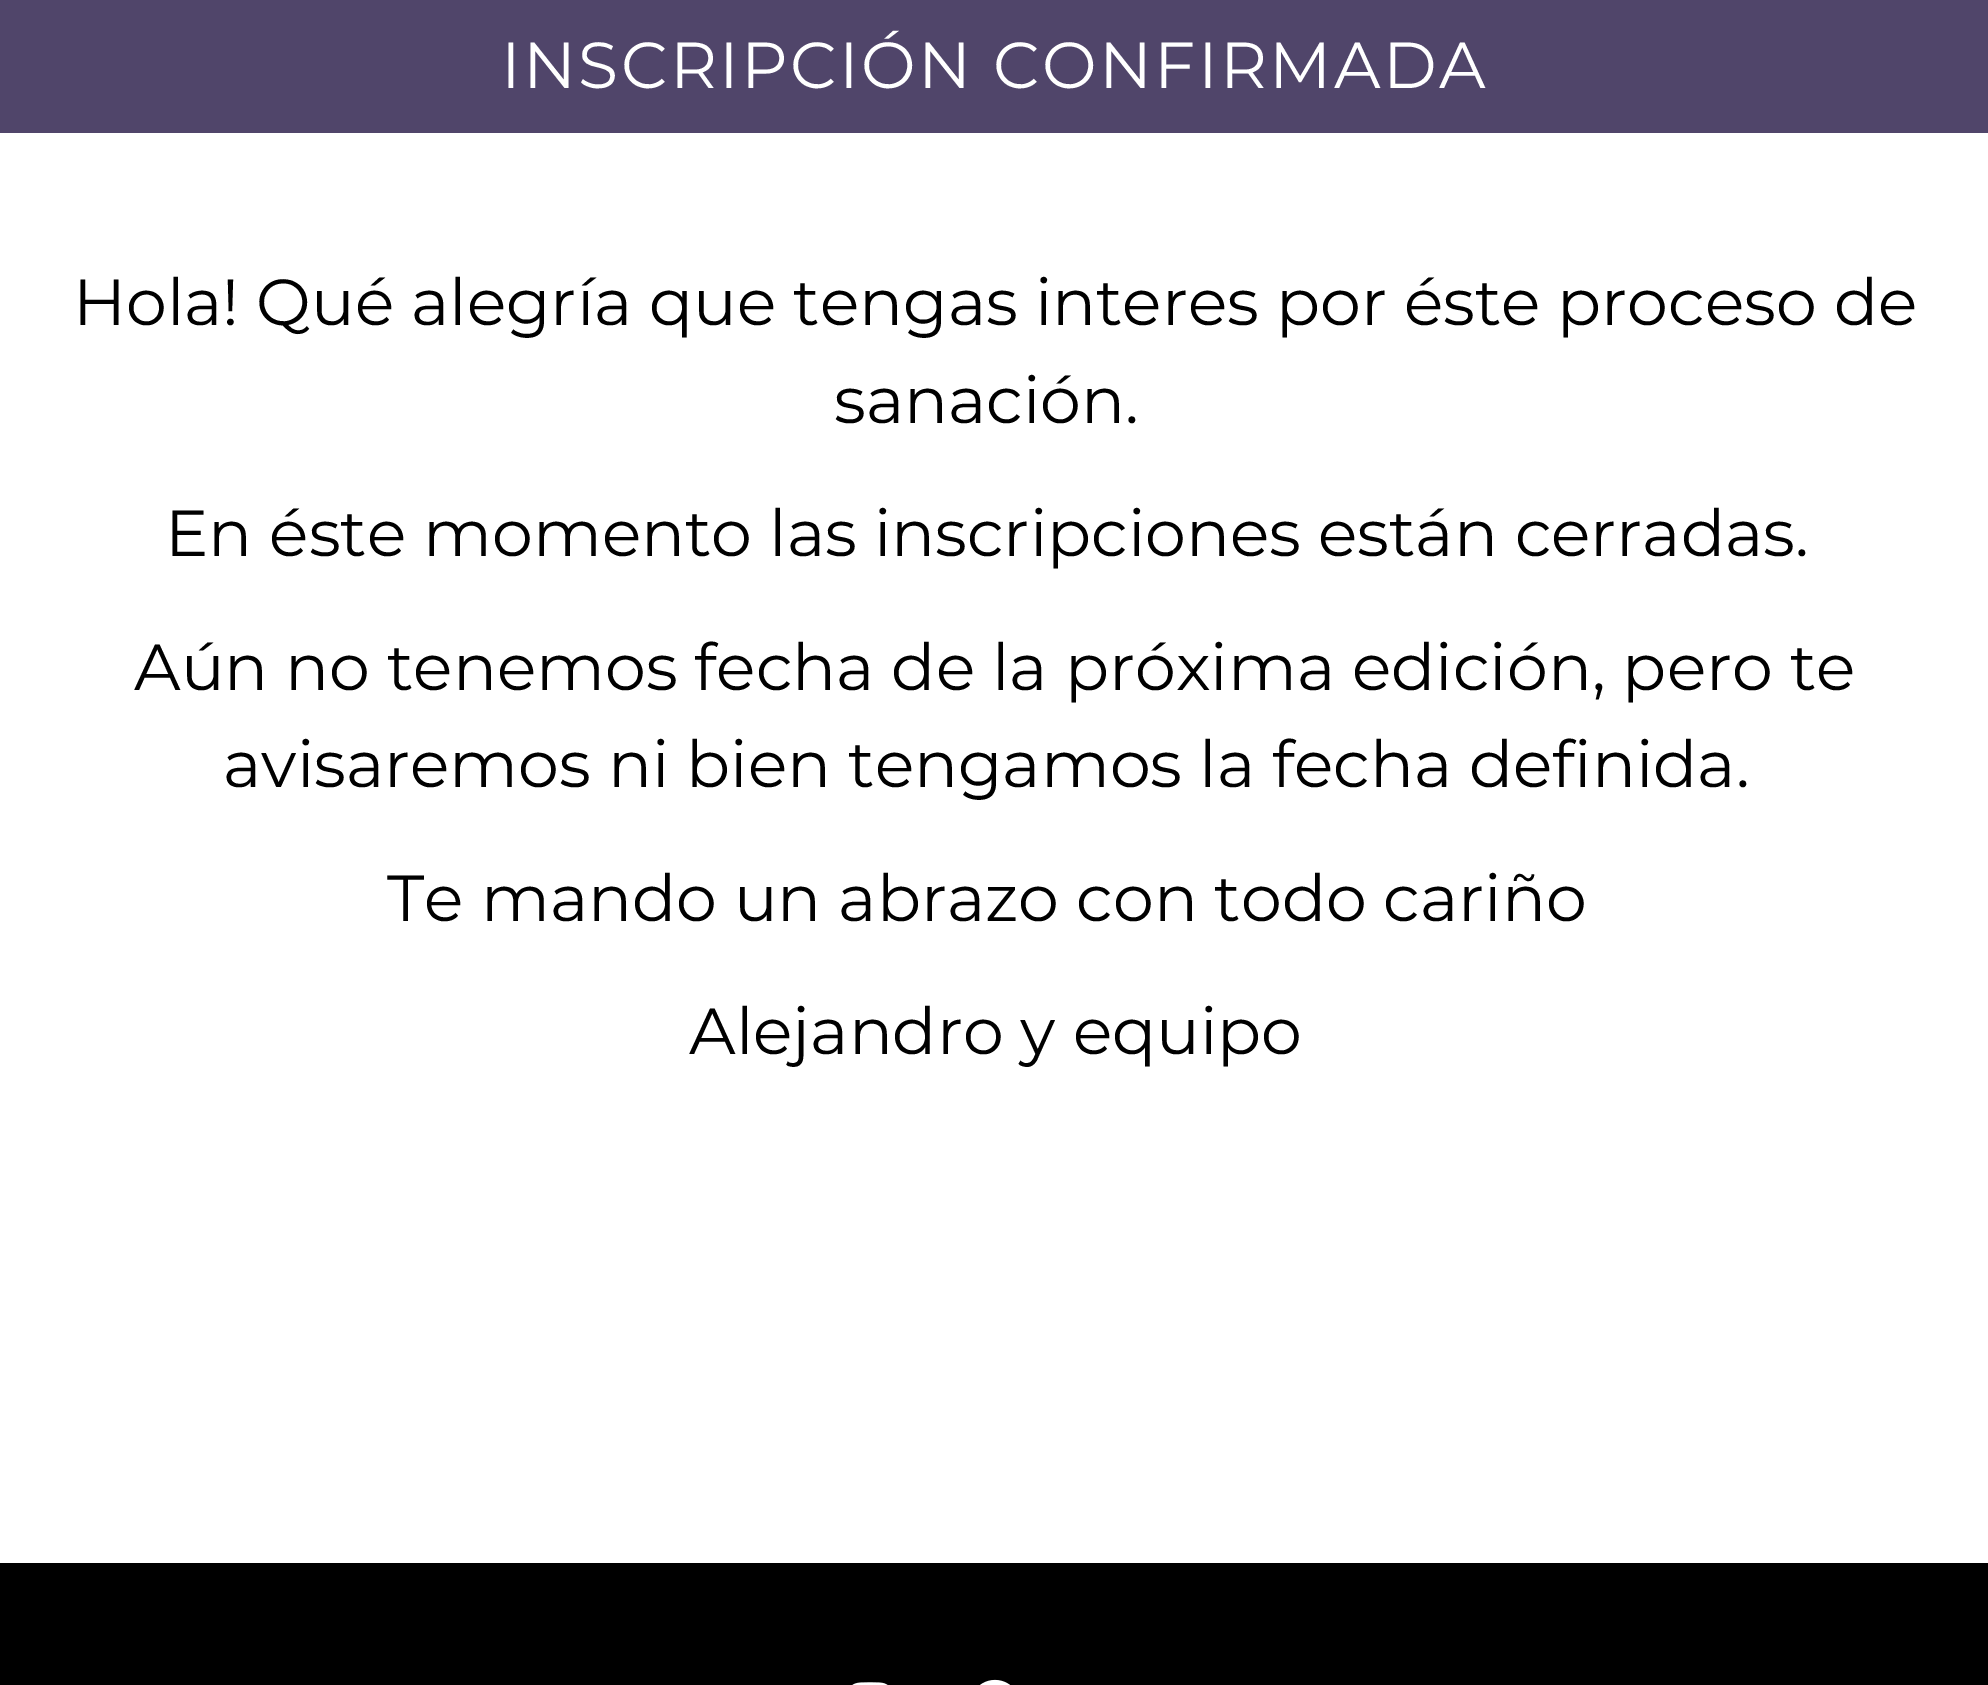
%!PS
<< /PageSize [1988 1685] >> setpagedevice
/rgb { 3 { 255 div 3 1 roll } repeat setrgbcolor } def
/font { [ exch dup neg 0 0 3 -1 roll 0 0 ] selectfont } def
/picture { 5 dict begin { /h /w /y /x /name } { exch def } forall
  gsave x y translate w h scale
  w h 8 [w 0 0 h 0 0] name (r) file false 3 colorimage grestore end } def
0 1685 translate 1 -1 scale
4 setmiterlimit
255 255 255 rgb
0 0 1988 1685 rectfill
80 69 106 rgb
0 0 1988 133 rectfill
0 0 0 rgb
0 1563 1988 122 rectfill
(img/1.rgb) 852 1682 36 3 picture
(img/2.rgb) 980 1679 30 6 picture
/Montserrat-Regular 65 font
255 255 255 rgb
501 88 moveto 2.5 0 (INSCRIPCIÓN CONFIRMADA) ashow
0 0 0 rgb
[
  [(Hola! Qué alegría que tengas interes por éste proceso de) 73 325]
  [(sanación.) 834 423]
  [(En éste momento las inscripciones están cerradas.) 165 556]
  [(Aún no tenemos fecha de la próxima edición, pero te) 134 690]
  [(avisaremos ni bien tengamos la fecha definida.) 223 787]
  [(Te mando un abrazo con todo cariño) 387 921]
  [(Alejandro y equipo) 689 1054]
] { aload pop moveto show } forall
showpage
